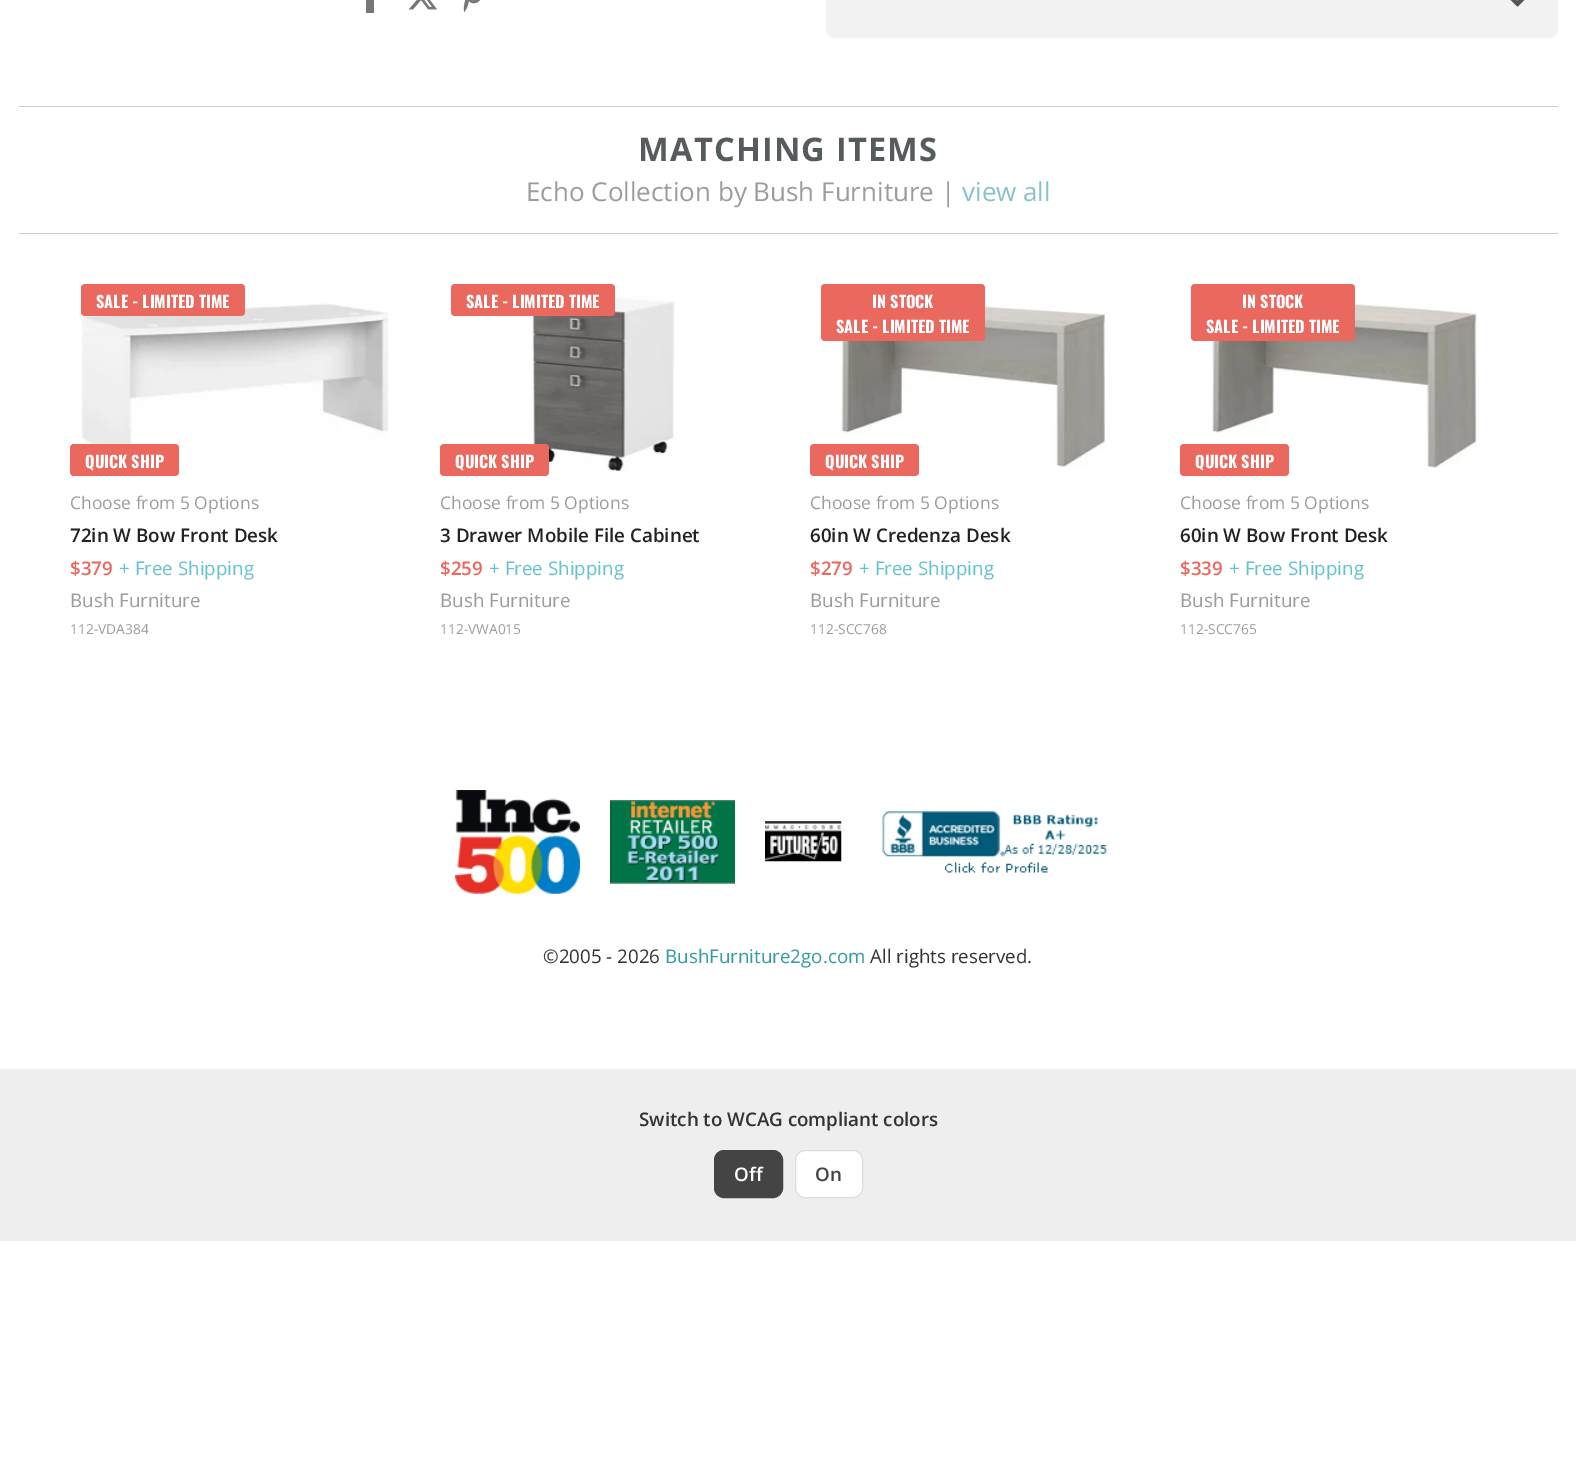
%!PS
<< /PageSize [1576 1484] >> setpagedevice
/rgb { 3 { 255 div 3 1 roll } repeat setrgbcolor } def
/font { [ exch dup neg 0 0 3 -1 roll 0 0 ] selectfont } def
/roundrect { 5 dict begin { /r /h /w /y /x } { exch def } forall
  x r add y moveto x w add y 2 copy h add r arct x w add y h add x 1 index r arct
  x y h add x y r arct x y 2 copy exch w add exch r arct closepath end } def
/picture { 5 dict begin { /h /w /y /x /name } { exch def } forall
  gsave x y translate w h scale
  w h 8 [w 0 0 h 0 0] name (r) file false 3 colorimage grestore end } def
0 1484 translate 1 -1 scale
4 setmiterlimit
255 255 255 rgb
0 0 1576 1484 rectfill
119 119 119 rgb
366 0 8 13 rectfill
(img/1.rgb) 408 0 29 10 picture
(img/2.rgb) 463 0 17 12 picture
242 242 242 rgb
826 -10 732 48 10 roundrect fill
(img/3.rgb) 1510 0 15 7 picture
204 204 204 rgb
19 106 1539 1 rectfill
19 233 1539 1 rectfill
(img/4.rgb) 81 303 308 161 picture
235 104 94 rgb
81 284 164 32 4 roundrect fill
70 444 109 32 4 roundrect fill
(img/5.rgb) 532 296 143 176 picture
451 284 164 32 4 roundrect fill
440 444 109 32 4 roundrect fill
(img/6.rgb) 841 300 265 167 picture
821 284 164 57 4 roundrect fill
810 444 109 32 4 roundrect fill
(img/7.rgb) 1211 301 266 167 picture
1191 284 164 57 4 roundrect fill
1180 444 109 32 4 roundrect fill
(img/8.rgb) 455 790 125 104 picture
(img/9.rgb) 610 800 125 84 picture
(img/10.rgb) 765 821 77 41 picture
(img/11.rgb) 882 811 225 62 picture
238 238 238 rgb
0 1069 1576 172 rectfill
68 68 68 rgb
714.5 1150.5 68 47 9.5 roundrect gsave fill grestore
stroke
255 255 255 rgb
795.5 1150.5 67 47 9.5 roundrect gsave fill grestore
221 221 221 rgb
stroke
/OpenSans-Bold 32.5 font
86 92 93 rgb
638 161 moveto 1.25 0 (MATCHING ITEMS) ashow
/OpenSans-Regular 26 font
154 157 158 rgb
526 201 moveto (Echo Collection by Bush Furniture |) show
133 194 203 rgb
962 201 moveto (view all) show
/Oswald-Bold 16.25 font
255 255 255 rgb
96 308 moveto (SALE - LIMITED TIME) show
85 468 moveto (QUICK SHIP) show
/OpenSans-Regular 17.5 font
154 157 158 rgb
70 509 moveto (Choose from 5 Options) show
/OpenSans-SemiBold 18.75 font
34 34 34 rgb
70 542 moveto (72in W Bow Front Desk) show
235 104 94 rgb
70 575 moveto ($379) show
/OpenSans-Regular 18.75 font
100 194 207 rgb
119 575 moveto (+ Free Shipping) show
154 157 158 rgb
70 607 moveto (Bush Furniture) show
/OpenSans-Regular 13.75 font
70 634 moveto (112-VDA384) show
/Oswald-Bold 16.25 font
255 255 255 rgb
466 308 moveto (SALE - LIMITED TIME) show
455 468 moveto (QUICK SHIP) show
/OpenSans-Regular 17.5 font
154 157 158 rgb
440 509 moveto (Choose from 5 Options) show
/OpenSans-SemiBold 18.75 font
34 34 34 rgb
440 542 moveto (3 Drawer Mobile File Cabinet) show
235 104 94 rgb
440 575 moveto ($259) show
/OpenSans-Regular 18.75 font
100 194 207 rgb
489 575 moveto (+ Free Shipping) show
154 157 158 rgb
440 607 moveto (Bush Furniture) show
/OpenSans-Regular 13.75 font
440 634 moveto (112-VWA015) show
/Oswald-Bold 16.25 font
255 255 255 rgb
[
  [(IN STOCK) 872 308]
  [(SALE - LIMITED TIME) 836 333]
  [(QUICK SHIP) 825 468]
] { aload pop moveto show } forall
/OpenSans-Regular 17.5 font
154 157 158 rgb
810 509 moveto (Choose from 5 Options) show
/OpenSans-SemiBold 18.75 font
34 34 34 rgb
810 542 moveto (60in W Credenza Desk) show
235 104 94 rgb
810 575 moveto ($279) show
/OpenSans-Regular 18.75 font
100 194 207 rgb
859 575 moveto (+ Free Shipping) show
154 157 158 rgb
810 607 moveto (Bush Furniture) show
/OpenSans-Regular 13.75 font
810 634 moveto (112-SCC768) show
/Oswald-Bold 16.25 font
255 255 255 rgb
[
  [(IN STOCK) 1242 308]
  [(SALE - LIMITED TIME) 1206 333]
  [(QUICK SHIP) 1195 468]
] { aload pop moveto show } forall
/OpenSans-Regular 17.5 font
154 157 158 rgb
1180 509 moveto (Choose from 5 Options) show
/OpenSans-SemiBold 18.75 font
34 34 34 rgb
1180 542 moveto (60in W Bow Front Desk) show
235 104 94 rgb
1180 575 moveto ($339) show
/OpenSans-Regular 18.75 font
100 194 207 rgb
1229 575 moveto (+ Free Shipping) show
154 157 158 rgb
1180 607 moveto (Bush Furniture) show
/OpenSans-Regular 13.75 font
1180 634 moveto (112-SCC765) show
/OpenSans-Regular 18.75 font
51 51 51 rgb
543 963 moveto (©2005 - 2026) show
51 154 168 rgb
665 963 moveto (BushFurniture2go.com) show
51 51 51 rgb
870 963 moveto (All rights reserved.) show
/OpenSans-SemiBold 18.75 font
639 1126 moveto (Switch to WCAG compliant colors) show
255 255 255 rgb
734 1181 moveto (Off) show
68 68 68 rgb
815 1181 moveto (On) show
showpage
